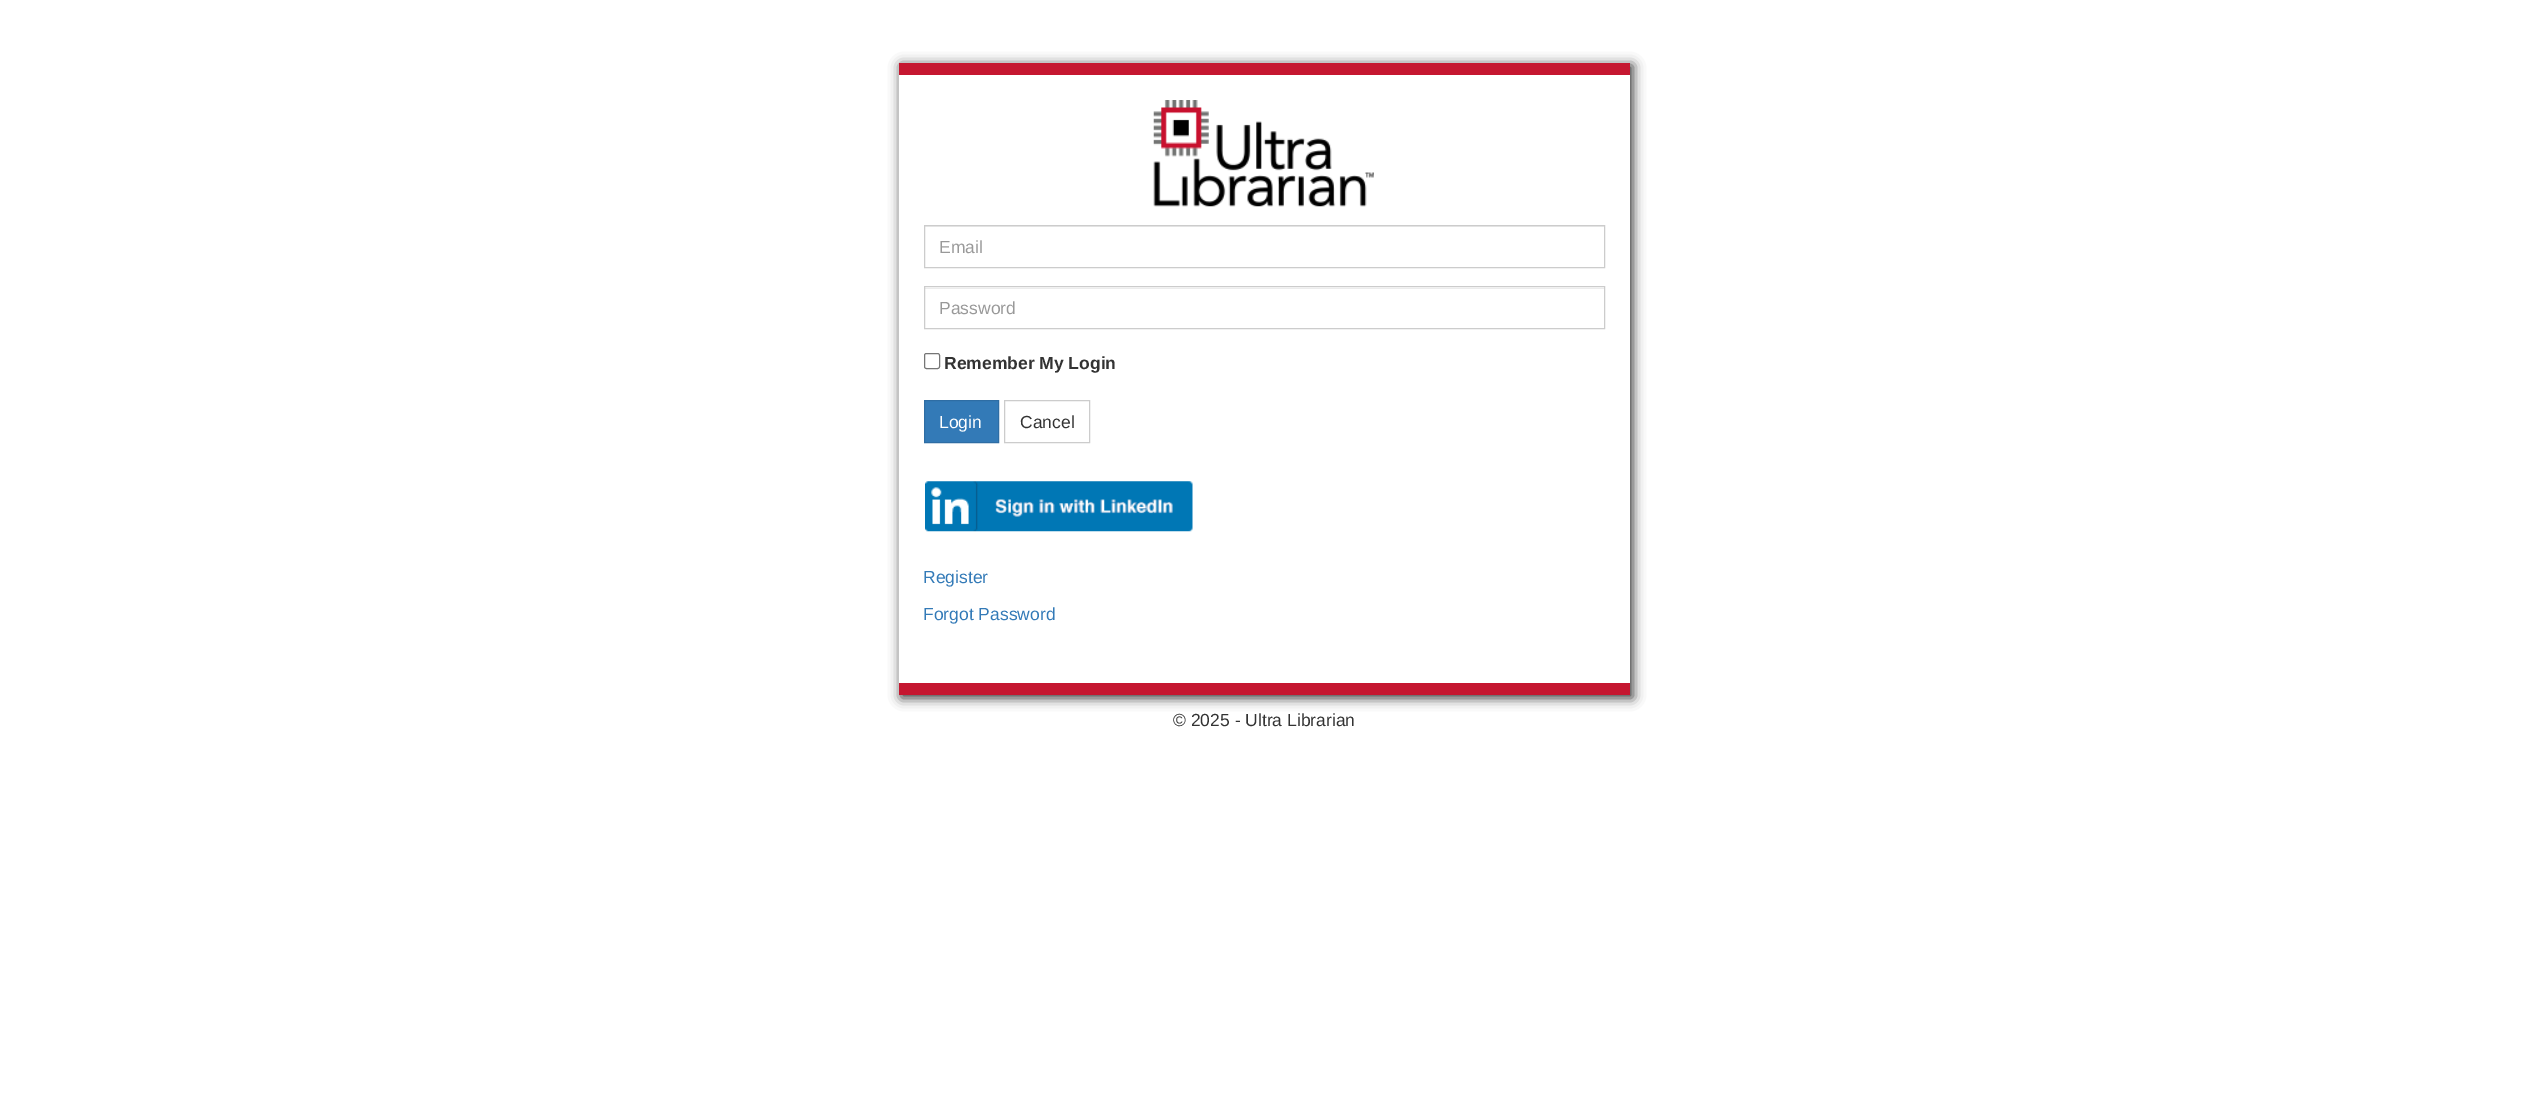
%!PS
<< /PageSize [2527 1114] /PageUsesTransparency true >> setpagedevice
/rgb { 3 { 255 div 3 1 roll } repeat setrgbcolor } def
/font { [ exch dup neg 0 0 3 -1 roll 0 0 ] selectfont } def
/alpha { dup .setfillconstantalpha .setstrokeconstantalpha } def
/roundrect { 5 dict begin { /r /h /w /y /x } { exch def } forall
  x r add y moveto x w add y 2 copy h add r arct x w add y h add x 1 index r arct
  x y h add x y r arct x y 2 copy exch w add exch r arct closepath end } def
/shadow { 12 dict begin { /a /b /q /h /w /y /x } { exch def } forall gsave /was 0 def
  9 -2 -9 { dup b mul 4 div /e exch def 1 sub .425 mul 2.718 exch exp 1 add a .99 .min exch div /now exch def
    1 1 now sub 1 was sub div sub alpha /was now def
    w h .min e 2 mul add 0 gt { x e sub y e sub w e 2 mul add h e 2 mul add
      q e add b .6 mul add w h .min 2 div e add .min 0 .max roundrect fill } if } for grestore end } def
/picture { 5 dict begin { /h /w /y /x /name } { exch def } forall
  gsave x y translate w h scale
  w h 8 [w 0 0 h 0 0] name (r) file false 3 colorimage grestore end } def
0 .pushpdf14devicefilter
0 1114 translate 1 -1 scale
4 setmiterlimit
255 255 255 rgb
0 0 2527 1114 rectfill
gsave
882 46 moveto 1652 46 lineto 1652 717 lineto 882 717 lineto closepath 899 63 moveto 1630 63 lineto 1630 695 lineto 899 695 lineto closepath eoclip newpath
51 51 51 rgb
901 65 732 633 0 6 1 shadow
grestore
197 23 48 rgb
899 63 731 12 rectfill
899 683 731 12 rectfill
(img/1.rgb) 1153 100 221 107 picture
236 236 236 rgb
925 226 679 1 rectfill
204 204 204 rgb
924.5 225.5 680 42 rectstroke
236 236 236 rgb
925 288 679 1 rectfill
204 204 204 rgb
924.5 286.5 680 42 rectstroke
118 118 118 rgb
924.5 353.5 15 15 2 roundrect stroke
51 122 183 rgb
924.5 400.5 moveto 998.5 400.5 lineto 998.5 442.5 lineto 924.5 442.5 lineto closepath gsave fill grestore
46 109 164 rgb
stroke
204 204 204 rgb
1004.5 400.5 85 42 rectstroke
(img/2.rgb) 925 481 268 51 picture
/LiberationSans-Regular 17.5 font
153 153 153 rgb
939 253 moveto (Email) show
939 314 moveto (Password) show
/LiberationSans-Bold 17.5 font
51 51 51 rgb
944 369 moveto (Remember My Login) show
/LiberationSans-Regular 17.5 font
255 255 255 rgb
939 428 moveto (Login) show
51 51 51 rgb
1020 428 moveto (Cancel) show
51 122 183 rgb
923 583 moveto (Register) show
923 620 moveto (Forgot Password) show
51 51 51 rgb
1173 726 moveto (© 2025 - Ultra Librarian) show
.poppdf14devicefilter showpage
